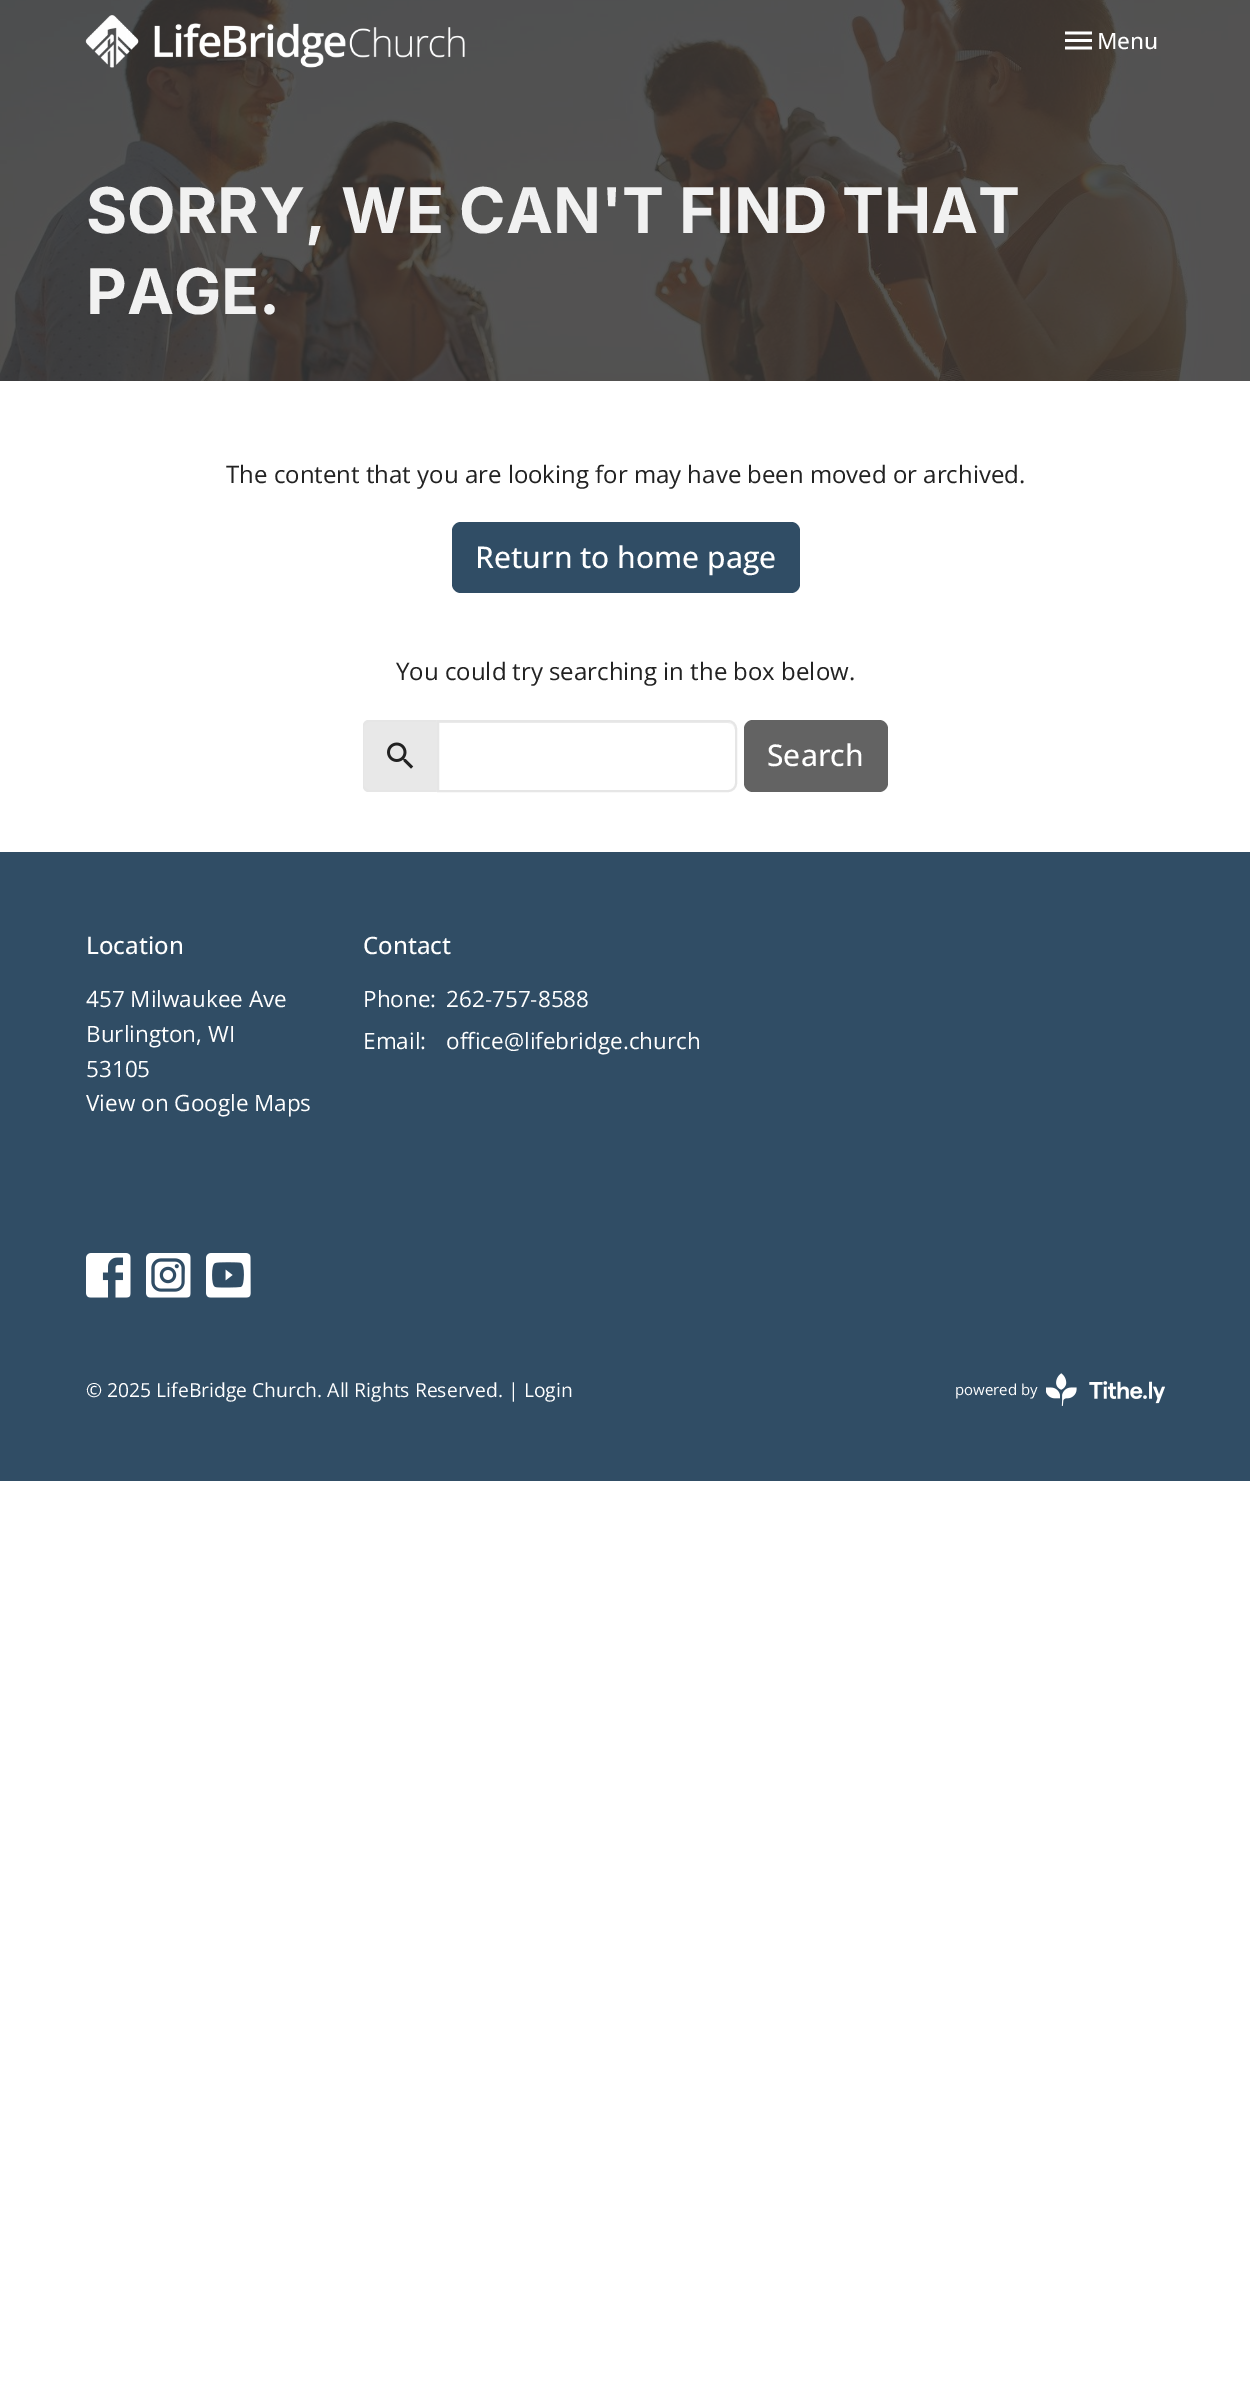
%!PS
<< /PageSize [1250 2391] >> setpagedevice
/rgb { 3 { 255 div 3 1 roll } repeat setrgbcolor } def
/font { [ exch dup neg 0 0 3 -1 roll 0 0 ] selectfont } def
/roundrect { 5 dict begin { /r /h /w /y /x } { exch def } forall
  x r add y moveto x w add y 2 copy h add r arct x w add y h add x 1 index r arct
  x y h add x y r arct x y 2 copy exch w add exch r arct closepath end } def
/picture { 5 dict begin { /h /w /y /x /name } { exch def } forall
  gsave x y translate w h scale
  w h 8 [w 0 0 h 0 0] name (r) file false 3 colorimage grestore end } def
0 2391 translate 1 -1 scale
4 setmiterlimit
255 255 255 rgb
0 0 1250 2391 rectfill
(img/3.rgb) 0 0 1250 381 picture
(img/1.rgb) 85 15 380 53 picture
(img/2.rgb) 1065 31 27 19 picture
48 77 101 rgb
452 522 348 71 9 roundrect fill
232 232 232 rgb
369 720 moveto 437 720 lineto 437 792 lineto 369 792 lineto 365.5 792 363 789.5 363 786 curveto 363 726 lineto 363 722.5 365.5 720 369 720 curveto closepath fill
230 230 230 rgb
369 720 moveto 436 720 lineto 436 792 lineto 369 792 lineto 366 792 363 789 363 786 curveto 363 726 lineto 363 723 366 720 369 720 curveto closepath 369 722 moveto 436 722 lineto 436 790 lineto 369 790 lineto 367 790 364 788 364 786 curveto 364 726 lineto 364 724 367 722 369 722 curveto closepath eofill
(img/4.rgb) 387 742 27 27 picture
236 236 236 rgb
438 723 moveto 728 723 lineto 732 723 735 726 735 730 curveto 735 726 731 722 727 722 curveto 438 722 lineto closepath fill
230 230 230 rgb
2 setlinewidth
438 721 moveto 728 721 lineto 732.5 721 736 724.5 736 729 curveto 736 783 lineto 736 787.5 732.5 791 728 791 curveto 438 791 lineto closepath stroke
99 99 99 rgb
744 720 144 72 9 roundrect fill
48 77 101 rgb
0 852 1250 629 rectfill
(img/5.rgb) 86 1253 45 45 picture
(img/6.rgb) 146 1253 45 45 picture
(img/7.rgb) 206 1253 45 45 picture
(img/8.rgb) 1046 1373 119 33 picture
/OpenSans-Medium 22.5 font
255 255 255 rgb
1097 49 moveto (Menu) show
/Inter-Bold 63 font
241 241 241 rgb
86 233 moveto (SORRY, WE CAN'T FIND THAT) show
86 314 moveto (PAGE.) show
/OpenSans-Regular 24 font
34 34 34 rgb
226 483 moveto (The content that you are looking for may have been moved or archived.) show
/OpenSans-Medium 30 font
255 255 255 rgb
475 568 moveto (Return to home page) show
/OpenSans-Regular 24 font
34 34 34 rgb
396 680 moveto (You could try searching in the box below.) show
/OpenSans-Medium 30 font
255 255 255 rgb
767 766 moveto (Search) show
/OpenSans-Medium 24 font
86 954 moveto (Location) show
/OpenSans-Regular 22.5 font
[
  [(457 Milwaukee Ave) 86 1007]
  [(Burlington, WI) 86 1042]
  [(53105) 86 1077]
  [(View on Google Maps) 86 1111]
] { aload pop moveto show } forall
/OpenSans-Medium 24 font
363 954 moveto (Contact) show
/OpenSans-Regular 22.5 font
[
  [(Phone:) 363 1007]
  [(262-757-8588) 446 1007]
  [(Email:) 363 1049]
  [(office@lifebridge.church) 446 1049]
] { aload pop moveto show } forall
/OpenSans-Regular 19.35 font
86 1397 moveto (© 2025 LifeBridge Church. All Rights Reserved. | Login) show
/OpenSans-Regular 15 font
955 1395 moveto (powered by) show
showpage
